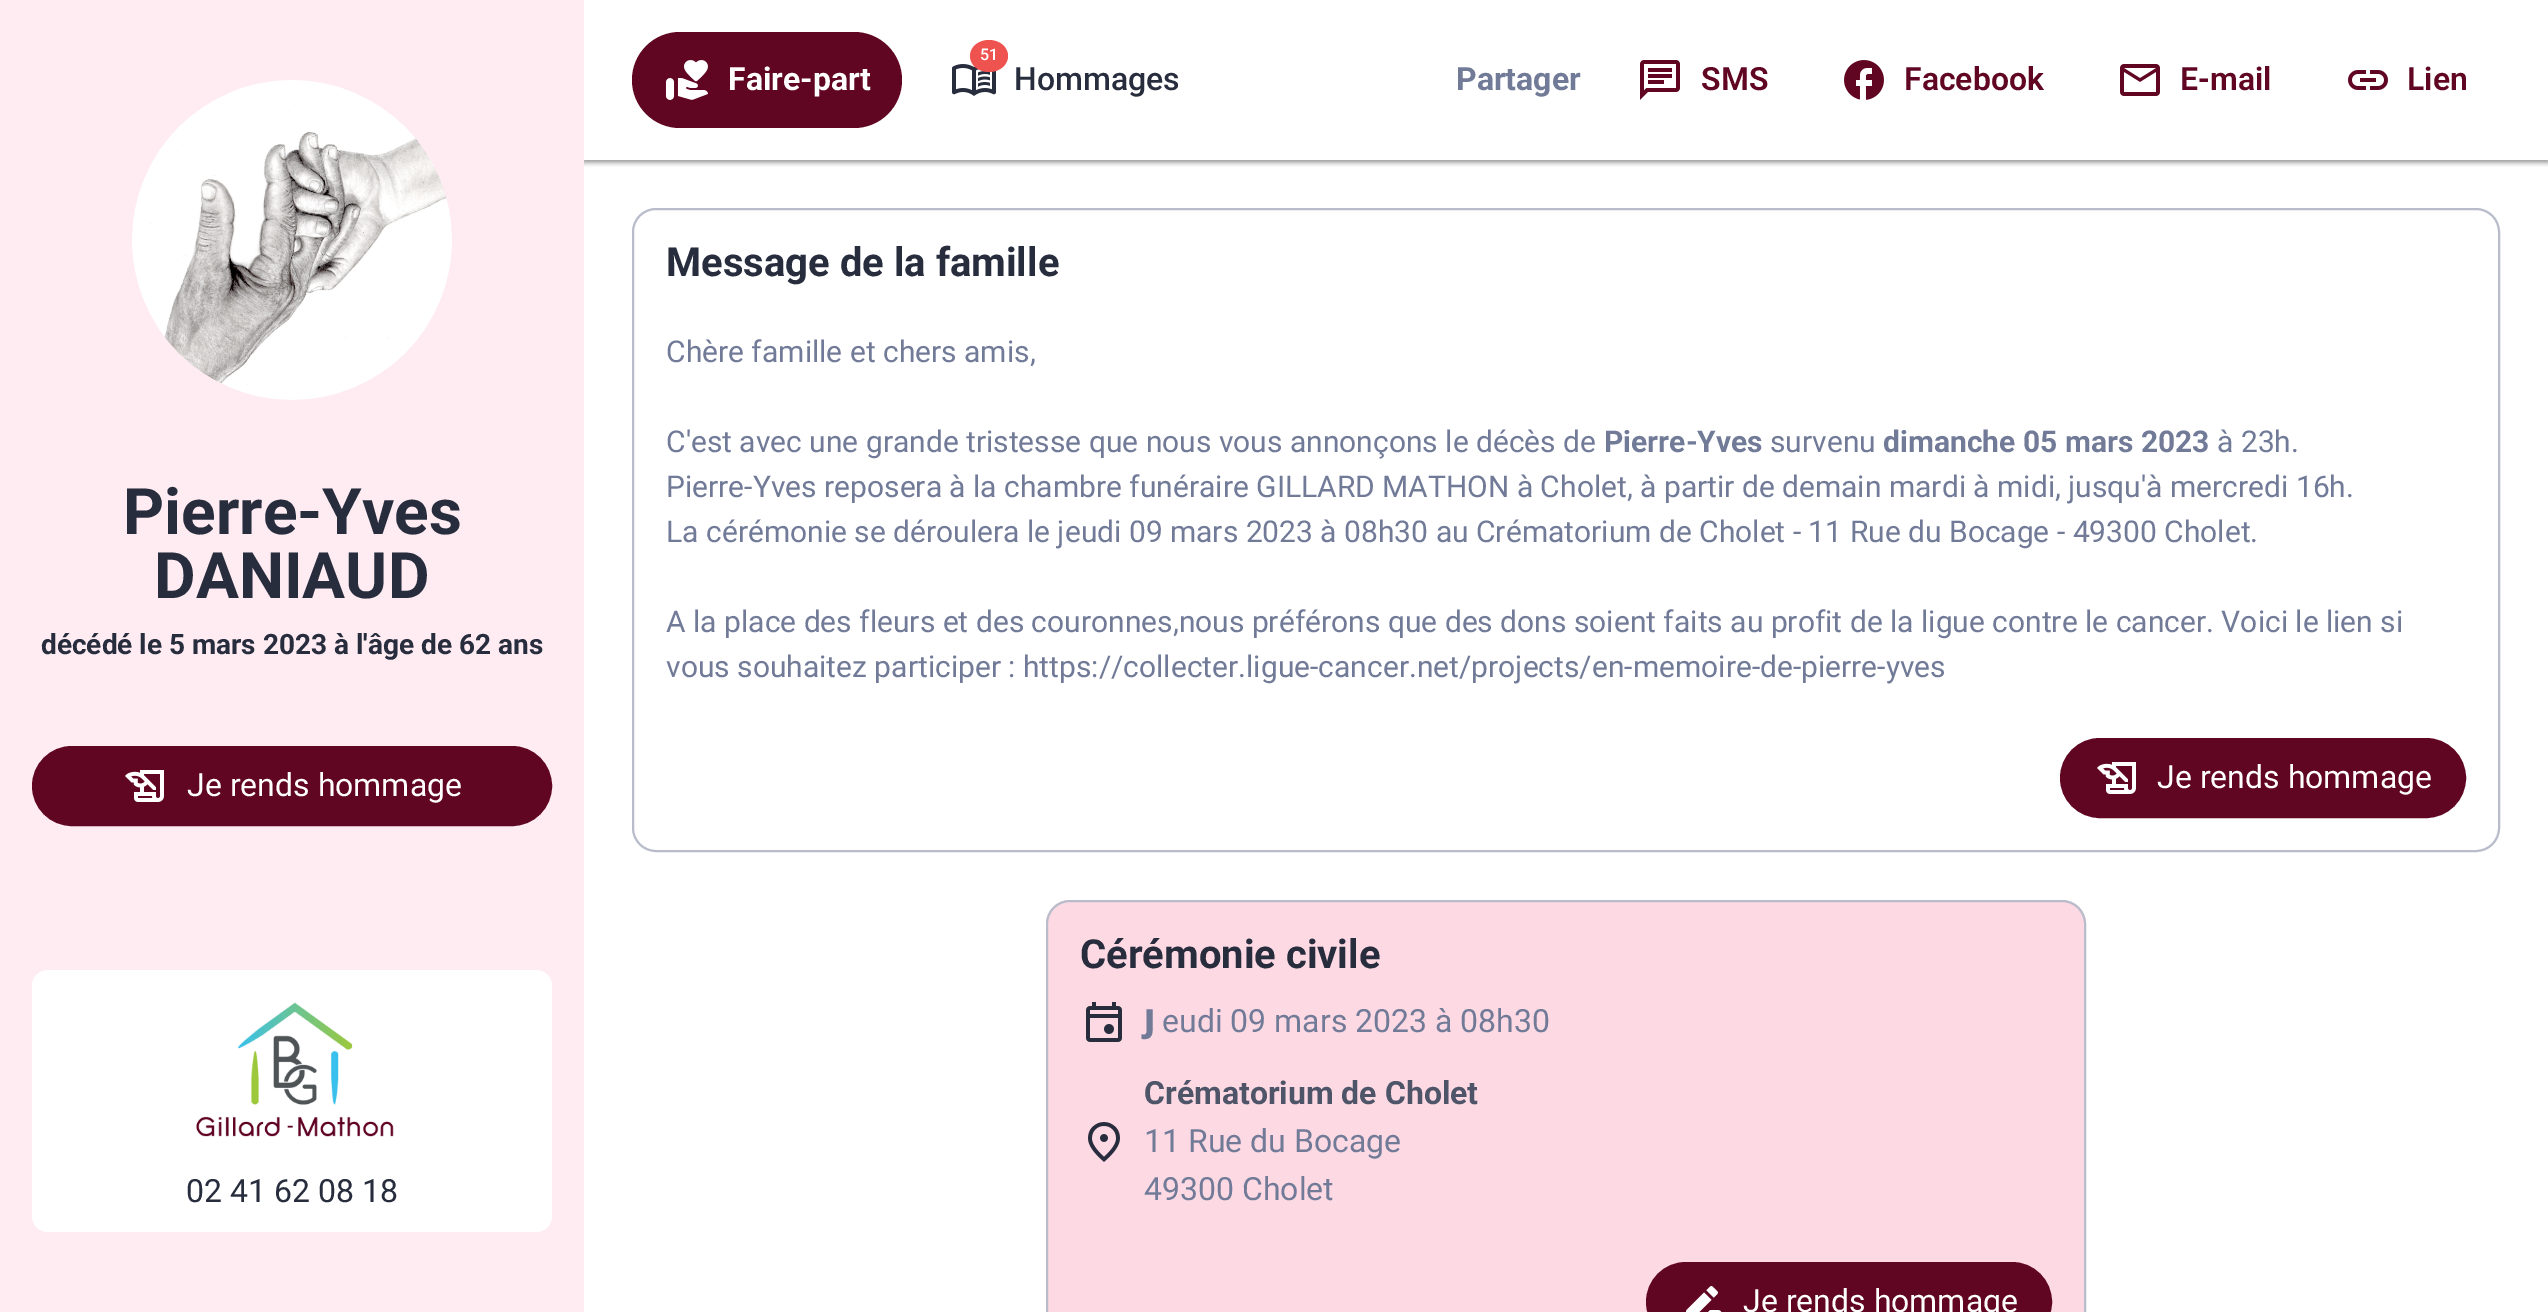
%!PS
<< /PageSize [2548 1312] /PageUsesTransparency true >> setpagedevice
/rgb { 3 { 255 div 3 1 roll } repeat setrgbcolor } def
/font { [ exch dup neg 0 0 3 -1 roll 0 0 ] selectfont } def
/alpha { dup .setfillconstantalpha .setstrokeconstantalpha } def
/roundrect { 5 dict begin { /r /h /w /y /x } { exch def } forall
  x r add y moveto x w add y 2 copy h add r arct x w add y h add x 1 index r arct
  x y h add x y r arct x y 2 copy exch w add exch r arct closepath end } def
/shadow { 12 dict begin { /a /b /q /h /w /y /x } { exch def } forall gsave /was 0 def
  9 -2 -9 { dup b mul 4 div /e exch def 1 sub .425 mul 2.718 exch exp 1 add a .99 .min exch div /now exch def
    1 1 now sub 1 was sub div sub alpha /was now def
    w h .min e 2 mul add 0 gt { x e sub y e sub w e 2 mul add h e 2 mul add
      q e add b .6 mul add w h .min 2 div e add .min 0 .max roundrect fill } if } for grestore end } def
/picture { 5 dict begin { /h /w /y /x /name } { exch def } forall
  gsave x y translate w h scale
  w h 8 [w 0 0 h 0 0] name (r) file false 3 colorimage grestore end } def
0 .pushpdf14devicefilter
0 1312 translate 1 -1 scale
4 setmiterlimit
255 255 255 rgb
0 0 2548 1312 rectfill
gsave
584 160 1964 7 rectclip
0 0 0 rgb
582 0 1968 164 0 3 0.15 shadow
grestore
gsave
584 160 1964 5 rectclip
0 0 0 rgb
584 2 1964 160 0 2 0.3 shadow
grestore
254 236 242 rgb
0 0 584 1312 rectfill
(img/1.rgb) 132 80 320 320 picture
96 6 35 rgb
33 747 518 78 39 roundrect gsave fill grestore
2 setlinewidth
stroke
(img/2.rgb) 125 770 39 32 picture
255 255 255 rgb
32 970 520 262 16 roundrect fill
(img/3.rgb) 196 1002 198 135 picture
96 6 35 rgb
632 32 270 96 48 roundrect fill
(img/4.rgb) 665 60 43 40 picture
(img/5.rgb) 952 64 44 32 picture
239 83 80 rgb
989 40 moveto 999.5 40 1008 47 1008 56 curveto 1008 65 999.5 72 989 72 curveto 978.5 72 970 65 970 56 curveto 970 47 978.5 40 989 40 curveto closepath fill
(img/6.rgb) 1640 60 40 40 picture
(img/7.rgb) 1844 60 40 40 picture
(img/8.rgb) 2120 64 40 32 picture
(img/9.rgb) 2348 70 40 20 picture
185 189 203 rgb
633 209 1866 642 23 roundrect stroke
96 6 35 rgb
2061 739 404 78 39 roundrect gsave fill grestore
stroke
(img/2.rgb) 2097 762 39 32 picture
253 217 228 rgb
1070 900 moveto 2062 900 lineto 2075.5 900 2086 910.5 2086 924 curveto 2086 1312 lineto 1046 1312 lineto 1046 924 lineto 1046 910.5 1056.5 900 1070 900 curveto closepath fill
185 189 203 rgb
1047 901 1038 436 23 roundrect stroke
(img/10.rgb) 1086 1002 36 40 picture
(img/11.rgb) 1088 1122 32 40 picture
96 6 35 rgb
1647 1263 404 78 39 roundrect gsave fill grestore
stroke
(img/12.rgb) 1686 1286 36 26 picture
/Roboto-Bold 64 font
40 45 62 rgb
123 534 moveto (Pierre-Yves) show
154 598 moveto (DANIAUD) show
/Roboto-Bold 28 font
41 654 moveto (décédé le 5 mars 2023 à l'âge de 62 ans) show
/Roboto-Regular 32 font
255 255 255 rgb
187 796 moveto (Je rends hommage) show
40 45 62 rgb
186 1202 moveto (02 41 62 08 18) show
/Roboto-Bold 32 font
255 255 255 rgb
728 90 moveto (Faire-part) show
/Roboto-Medium 16 font
980 60 moveto (51) show
/Roboto-Medium 32 font
40 45 62 rgb
1014 90 moveto (Hommages) show
/Roboto-Bold 32 font
113 123 152 rgb
1456 90 moveto (Partager) show
/Roboto-SemiBold 32 font
96 6 35 rgb
[
  [(SMS) 1701 90]
  [(Facebook) 1904 90]
  [(E-mail) 2180 90]
  [(Lien) 2407 90]
] { aload pop moveto show } forall
/Roboto-Bold 40 font
40 45 62 rgb
666 276 moveto (Message de la famille) show
/Roboto-Regular 30 font
113 123 152 rgb
666 362 moveto (Chère famille et chers amis,) show
666 452 moveto (C'est avec une grande tristesse que nous vous annonçons le décès de) show
/Roboto-Bold 30 font
1604 452 moveto (Pierre-Yves) show
/Roboto-Regular 30 font
1770 452 moveto (survenu) show
/Roboto-Bold 30 font
1883 452 moveto (dimanche 05 mars 2023) show
/Roboto-Regular 30 font
[
  [(à 23h.) 2217 452]
  [(Pierre-Yves reposera à la chambre funéraire GILLARD MATHON à Cholet, à partir de demain mardi à midi, jusqu'à mercredi 16h.) 666 497]
  [(La cérémonie se déroulera le jeudi 09 mars 2023 à 08h30 au Crématorium de Cholet - 11 Rue du Bocage - 49300 Cholet.) 666 542]
  [(A la place des fleurs et des couronnes,nous préférons que des dons soient faits au profit de la ligue contre le cancer. Voici le lien si) 666 632]
  [(vous souhaitez participer : https://collecter.ligue-cancer.net/projects/en-memoire-de-pierre-yves) 666 677]
] { aload pop moveto show } forall
/Roboto-Regular 32 font
255 255 255 rgb
2157 788 moveto (Je rends hommage) show
/Roboto-Bold 40 font
40 45 62 rgb
1080 968 moveto (Cérémonie civile) show
/NotoSans-Black 32 font
113 123 152 rgb
1144 1032 moveto (J) show
/Roboto-Regular 32 font
1162 1032 moveto (eudi 09 mars 2023 à 08h30) show
/Roboto-Bold 32 font
78 85 104 rgb
1144 1104 moveto (Crématorium de Cholet) show
/Roboto-Regular 32 font
113 123 152 rgb
1144 1152 moveto (11 Rue du Bocage) show
1144 1200 moveto (49300 Cholet) show
255 255 255 rgb
1743 1312 moveto (Je rends hommage) show
.poppdf14devicefilter showpage
